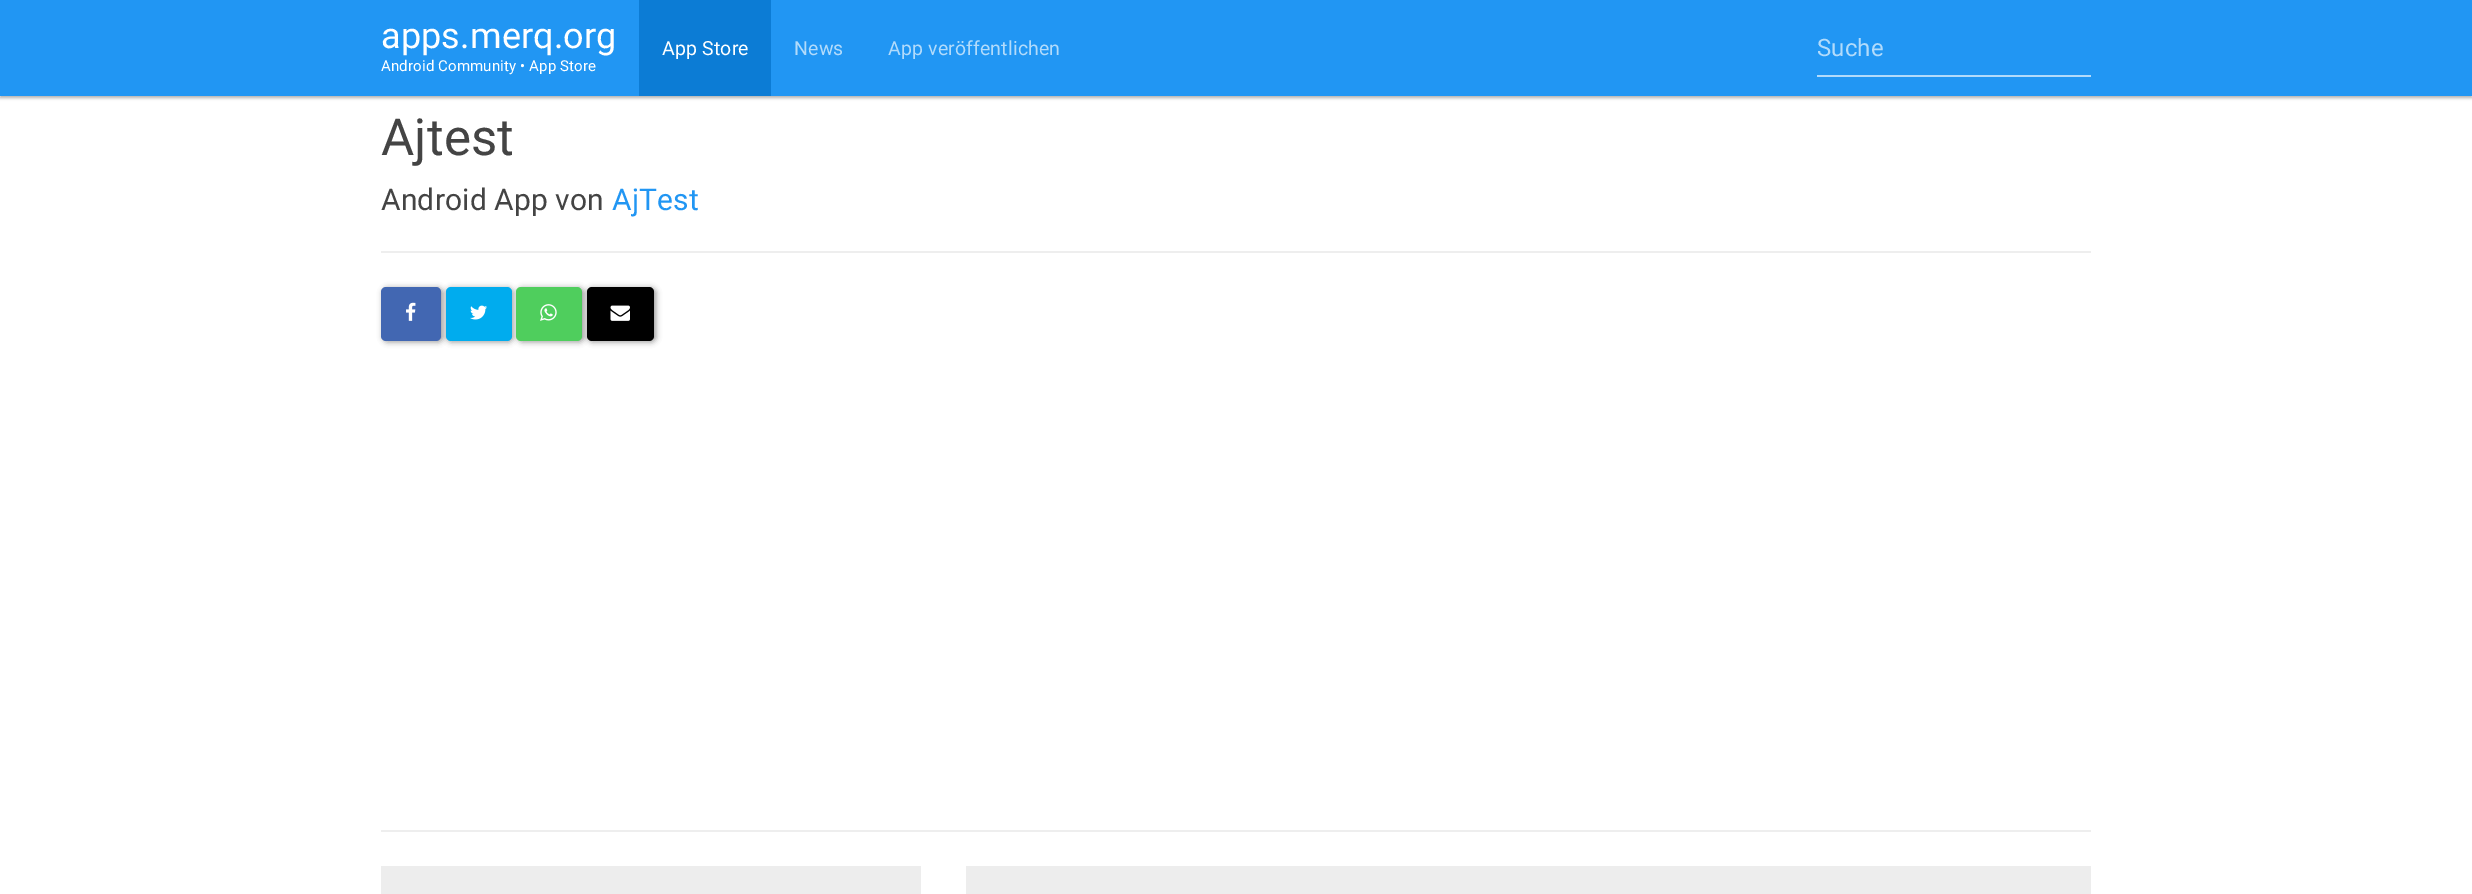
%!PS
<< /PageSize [2472 894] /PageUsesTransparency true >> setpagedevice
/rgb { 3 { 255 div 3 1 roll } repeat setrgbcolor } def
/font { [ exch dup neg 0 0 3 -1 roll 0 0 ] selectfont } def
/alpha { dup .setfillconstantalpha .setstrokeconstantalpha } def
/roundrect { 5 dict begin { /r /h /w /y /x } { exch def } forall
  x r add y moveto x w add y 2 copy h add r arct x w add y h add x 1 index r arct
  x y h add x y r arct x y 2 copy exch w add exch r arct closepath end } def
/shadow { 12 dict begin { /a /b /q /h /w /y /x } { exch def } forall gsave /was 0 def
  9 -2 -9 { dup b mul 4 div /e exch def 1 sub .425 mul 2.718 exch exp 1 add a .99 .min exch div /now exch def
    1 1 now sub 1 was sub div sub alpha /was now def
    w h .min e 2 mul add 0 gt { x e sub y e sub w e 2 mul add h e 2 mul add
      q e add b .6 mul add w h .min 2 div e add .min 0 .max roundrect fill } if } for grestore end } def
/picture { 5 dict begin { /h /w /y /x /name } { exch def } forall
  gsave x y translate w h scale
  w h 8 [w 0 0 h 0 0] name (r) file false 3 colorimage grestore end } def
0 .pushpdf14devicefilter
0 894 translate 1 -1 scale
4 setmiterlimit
255 255 255 rgb
0 0 2472 894 rectfill
0 0 0 rgb
0 2 2472 96 0 1.5 0.3 shadow
[
  [0 0 2472 96 33 150 243]
  [639 0 132 96 12 124 213]
  [1817 75 274 2 178 219 251]
  [381 251 1710 2 238 238 238]
] { aload pop rgb rectfill } forall
0 0 0 rgb
383 288 60 54 5 3 0.4 shadow
66 103 178 rgb
381 287 60 54 5 roundrect fill
(img/1.rgb) 406 302 10 19 picture
0 0 0 rgb
447 288 66 54 5 3 0.4 shadow
0 172 238 rgb
446 287 66 54 5 roundrect fill
(img/2.rgb) 470 305 17 15 picture
0 0 0 rgb
518 288 66 54 5 3 0.4 shadow
79 206 93 rgb
516 287 66 54 5 roundrect fill
(img/3.rgb) 540 304 17 17 picture
0 0 0 rgb
588 288 68 54 5 3 0.4 shadow
587 287 67 54 5 roundrect fill
(img/4.rgb) 610 305 20 16 picture
[
  [381 830 1710 2 238 238 238]
  [381 866 540 28 237 237 237]
  [966 866 1125 28 237 237 237]
] { aload pop rgb rectfill } forall
/Roboto-Regular 36 font
255 255 255 rgb
381 48 moveto 0.15 0 (apps.merq.org) ashow
/Roboto-Regular 15 font
381 71 moveto 0.15 0 (Android Community • App Store) ashow
/Roboto-Regular 19.5 font
662 55 moveto 0.15 0 (App Store) ashow
178 219 251 rgb
794 55 moveto 0.15 0 (News) ashow
888 55 moveto 0.15 0 (App veröffentlichen) ashow
/Roboto-Regular 24 font
1817 56 moveto 0.15 0 (Suche) ashow
/Roboto-Regular 51 font
68 68 68 rgb
381 155 moveto 0.15 0 (Ajtest) ashow
/Roboto-Regular 30 font
381 210 moveto 0.15 0 (Android App von) ashow
33 150 243 rgb
612 210 moveto 0.15 0 (AjTest) ashow
.poppdf14devicefilter showpage
